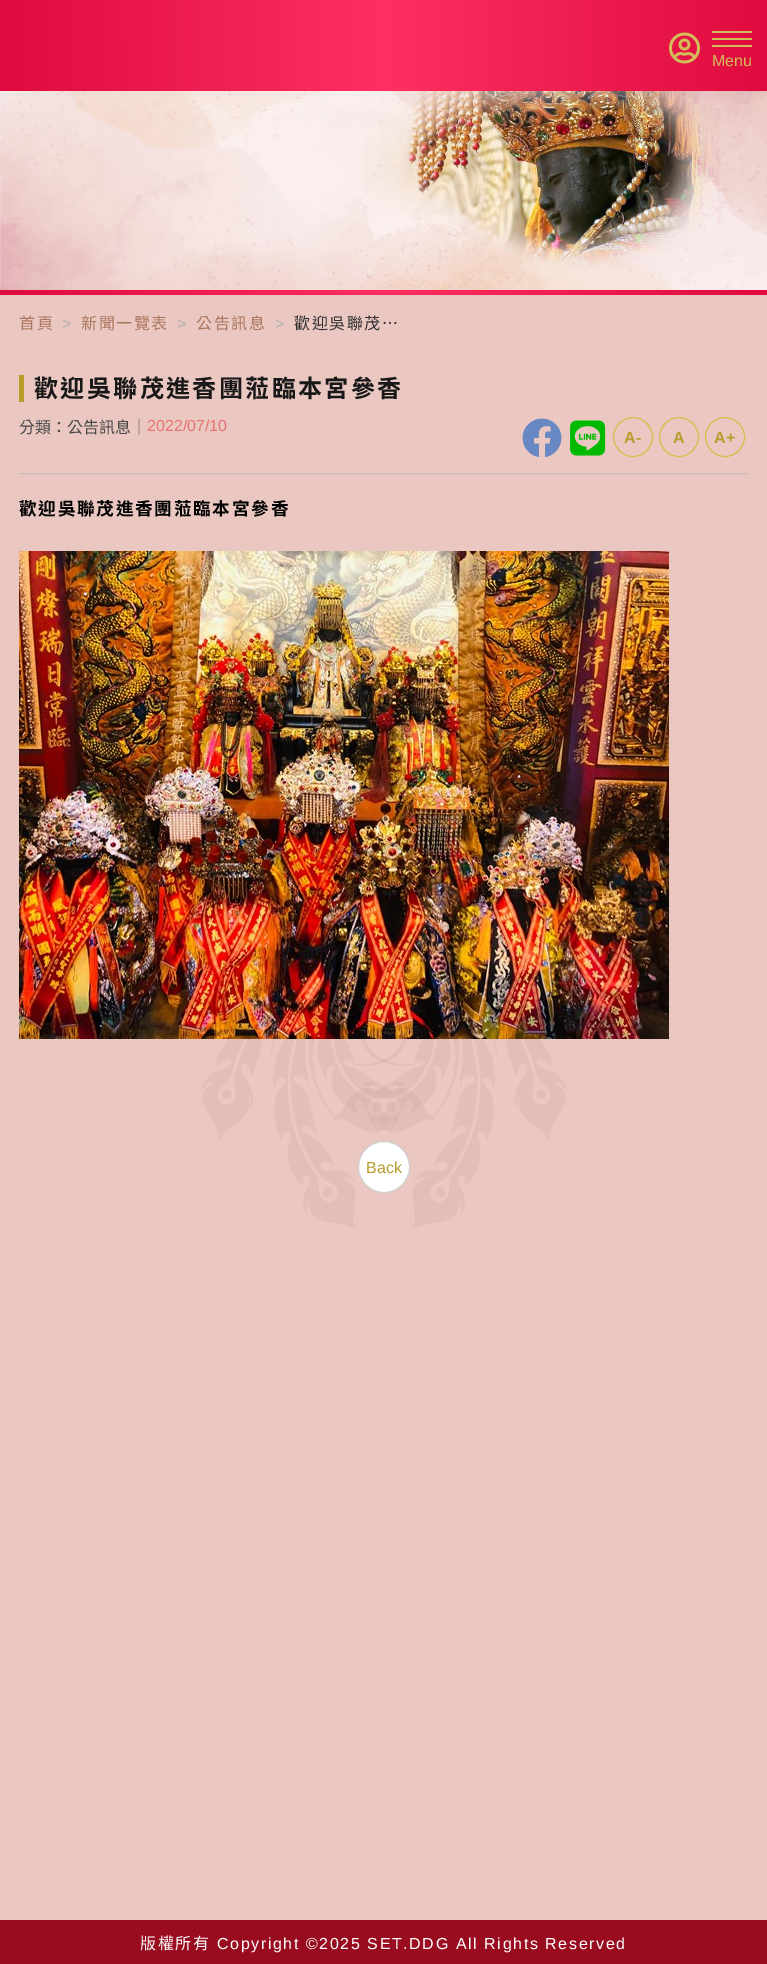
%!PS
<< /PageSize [767 1964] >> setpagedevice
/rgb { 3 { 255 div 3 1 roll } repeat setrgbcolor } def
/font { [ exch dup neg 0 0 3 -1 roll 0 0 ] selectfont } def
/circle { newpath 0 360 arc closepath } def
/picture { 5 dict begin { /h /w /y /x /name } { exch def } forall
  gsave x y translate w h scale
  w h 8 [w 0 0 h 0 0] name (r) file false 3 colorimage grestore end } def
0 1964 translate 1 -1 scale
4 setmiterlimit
234 199 193 rgb
0 0 767 1964 rectfill
(img/1.rgb) 201 1039 366 191 picture
gsave 0 0 moveto 767 0 lineto 767 91 lineto 0 91 lineto closepath clip newpath
<< /ShadingType 2 /ColorSpace /DeviceRGB /Coords [0 46 767 45] /Extend [true true] /Function << /FunctionType 3 /Domain [0 1] /Functions [<< /FunctionType 2 /Domain [0 1] /C0 [0.875 0.043 0.243] /C1 [0.996 0.184 0.38] /N 1 >> << /FunctionType 2 /Domain [0 1] /C0 [0.996 0.184 0.38] /C1 [0.875 0.043 0.243] /N 1 >>] /Bounds [0.5] /Encode [0 1 0 1] >> >> shfill grestore
(img/2.rgb) 669 32 31 32 picture
[
  [712 31 40 2 211 189 89]
  [712 38 40 2 211 189 89]
  [712 45 40 2 211 189 89]
] { aload pop rgb rectfill } forall
(img/3.rgb) 0 91 767 199 picture
gsave 0 290 moveto 767 290 lineto 767 295 lineto 0 295 lineto closepath clip newpath
<< /ShadingType 2 /ColorSpace /DeviceRGB /Coords [0 293 767 293] /Extend [true true] /Function << /FunctionType 3 /Domain [0 1] /Functions [<< /FunctionType 2 /Domain [0 1] /C0 [0.875 0.043 0.243] /C1 [0.996 0.184 0.38] /N 1 >> << /FunctionType 2 /Domain [0 1] /C0 [0.996 0.184 0.38] /C1 [0.875 0.043 0.243] /N 1 >>] /Bounds [0.5] /Encode [0 1 0 1] >> >> shfill grestore
184 156 44 rgb
19 375 5 27 rectfill
184 184 184 rgb
[1 1] 0 setdash
19 473.5 moveto 748 473.5 lineto stroke
(img/4.rgb) 522 418 40 40 picture
(img/5.rgb) 570 420 36 36 picture
217 189 75 rgb
[] 0 setdash
633 437 19.5 circle stroke
679 437 19.5 circle stroke
725 437 19.5 circle stroke
(img/6.rgb) 19 551 650 488 picture
255 255 255 rgb
384 1167 25.5 circle gsave fill grestore
207 207 207 rgb
stroke
153 11 31 rgb
0 1920 767 44 rectfill
/LiberationSans-Regular 16 font
211 189 89 rgb
712 66 moveto (Menu) show
/NotoSansTC-Regular 16 font
172 119 96 rgb
19 329 moveto 1.6 0 (首頁) ashow
/LiberationSans-Regular 16 font
174 174 174 rgb
62 329 moveto 1.6 0 (>) ashow
/NotoSansTC-Regular 16 font
172 119 96 rgb
81 329 moveto 1.6 0 (新聞一覽表) ashow
/LiberationSans-Regular 16 font
174 174 174 rgb
177 329 moveto 1.6 0 (>) ashow
/NotoSansTC-Regular 16 font
172 119 96 rgb
196 329 moveto 1.6 0 (公告訊息) ashow
/LiberationSans-Regular 16 font
174 174 174 rgb
275 329 moveto 1.6 0 (>) ashow
/NotoSansTC-Regular 16 font
48 48 48 rgb
294 329 moveto 1.6 0 (歡迎吳聯茂…) ashow
/NotoSansTC-Bold 24 font
24 24 24 rgb
34 397 moveto 2.4 0 (歡迎吳聯茂進香團蒞臨本宮參香) ashow
/NotoSansTC-Regular 16 font
72 72 72 rgb
19 433 moveto (分類：公告訊息｜) show
/LiberationSans-Regular 16 font
231 116 116 rgb
147 431 moveto (2022/07/10) show
/LiberationSans-Bold 16 font
184 156 44 rgb
[
  [(A-) 624 443]
  [(A) 673 443]
  [(A+) 714 443]
] { aload pop moveto show } forall
/NotoSansTC-Bold 17.6 font
0 0 0 rgb
19 515 moveto 1.75 0 (歡迎吳聯茂進香團蒞臨本宮參香) ashow
/LiberationSans-Regular 16 font
184 156 44 rgb
366 1173 moveto (Back) show
/NotoSansTC-Regular 16 font
255 255 255 rgb
140 1949 moveto 1.6 0 (版權所有) ashow
/LiberationSans-Regular 16 font
217 1949 moveto 1.6 0 (Copyright ©2025 SET.DDG All Rights Reserved) ashow
showpage
